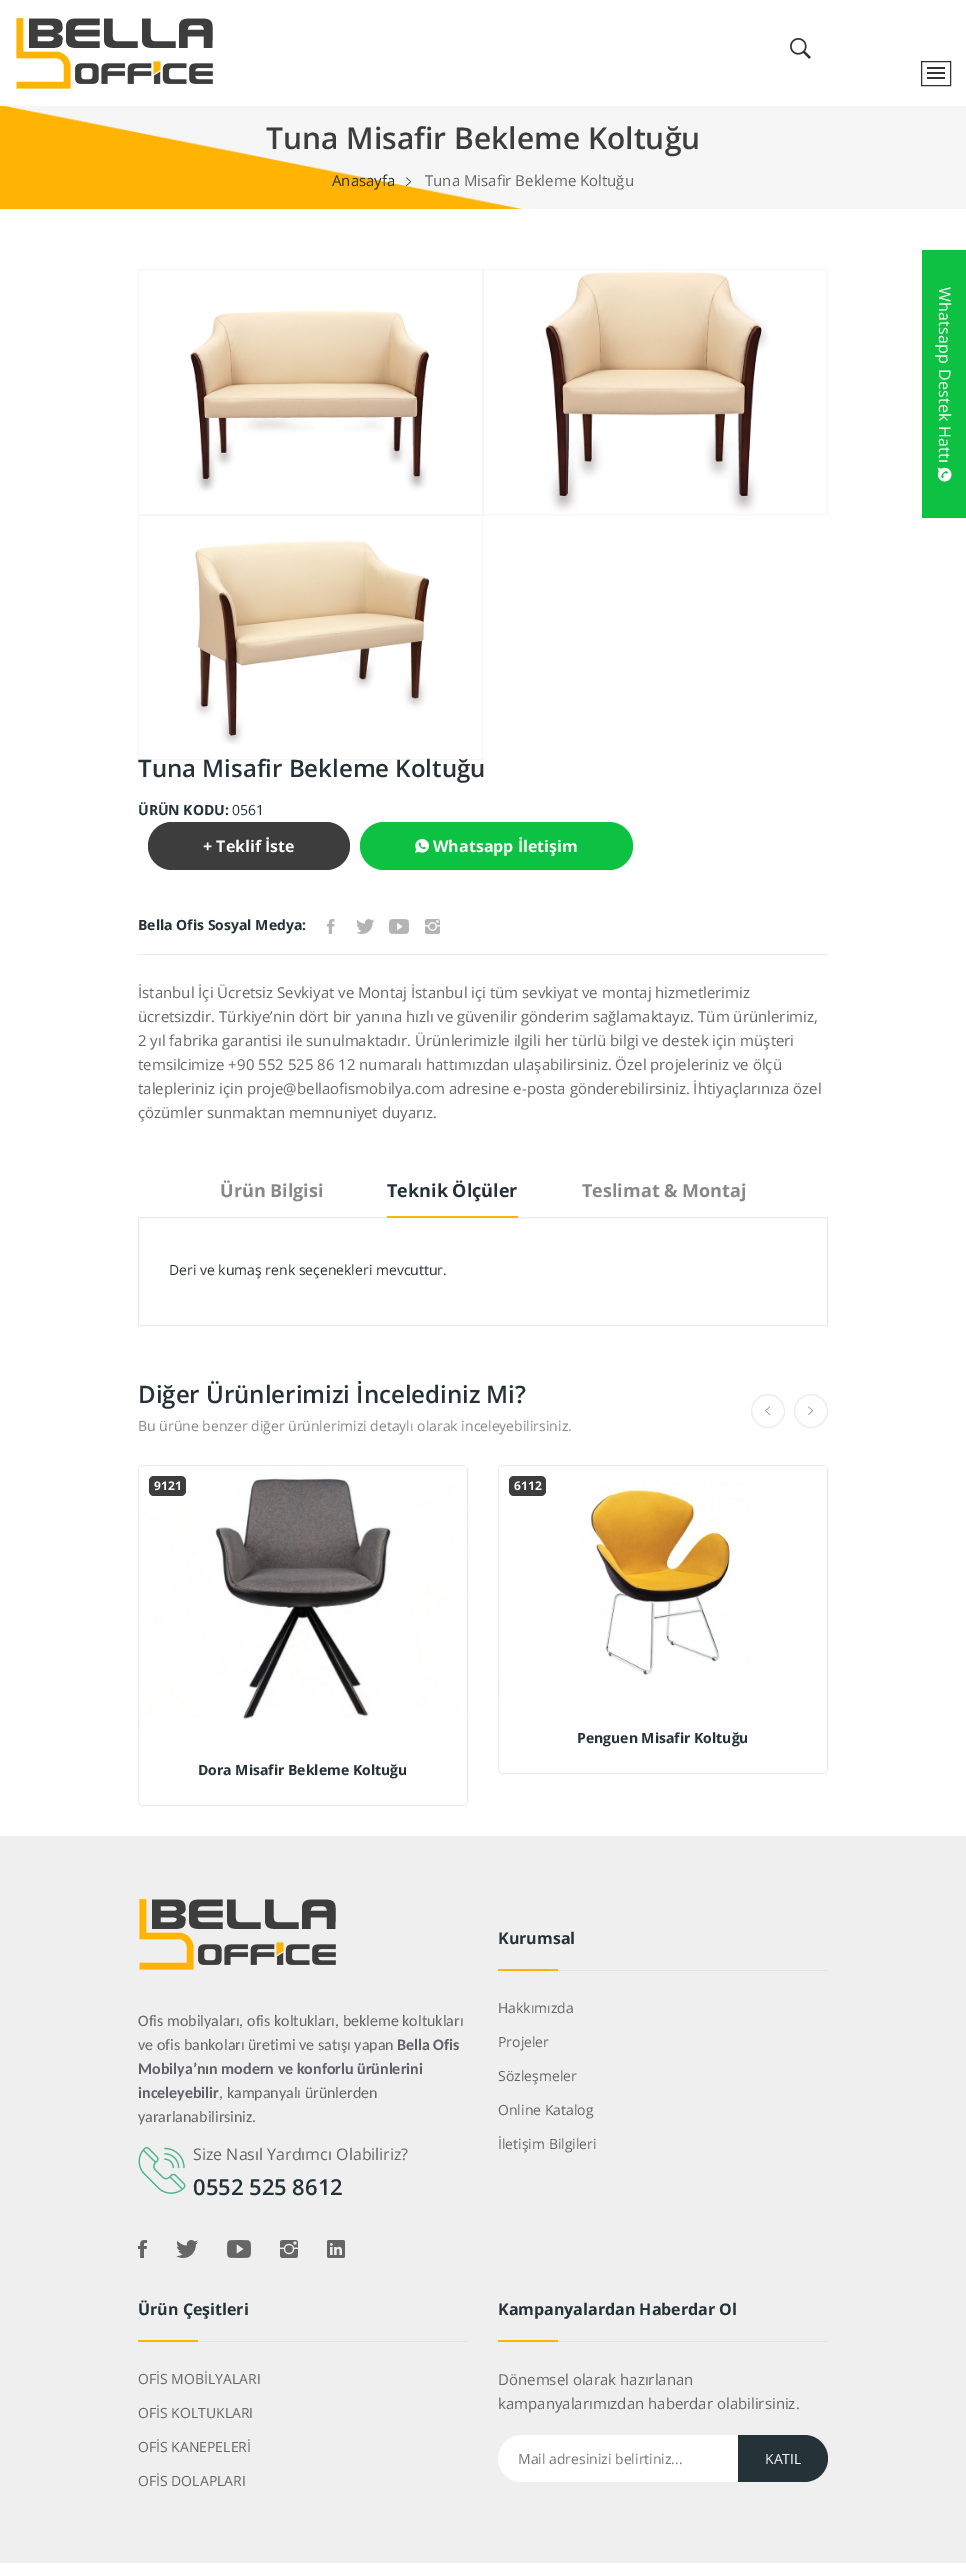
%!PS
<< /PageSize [966 2571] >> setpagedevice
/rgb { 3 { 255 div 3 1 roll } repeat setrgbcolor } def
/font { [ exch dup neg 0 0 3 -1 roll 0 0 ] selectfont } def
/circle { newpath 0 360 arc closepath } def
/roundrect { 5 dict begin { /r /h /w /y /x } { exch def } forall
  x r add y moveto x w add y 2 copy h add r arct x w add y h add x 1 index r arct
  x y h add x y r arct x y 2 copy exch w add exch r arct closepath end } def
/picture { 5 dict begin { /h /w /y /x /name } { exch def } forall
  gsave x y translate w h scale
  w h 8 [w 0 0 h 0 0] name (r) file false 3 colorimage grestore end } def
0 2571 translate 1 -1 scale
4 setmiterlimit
255 255 255 rgb
0 0 966 2571 rectfill
(img/1.rgb) 16 18 197 71 picture
(img/2.rgb) 790 38 21 21 picture
51 51 51 rgb
921.5 61.5 29 24 rectstroke
[
  [927 67 18 2 51 51 51]
  [927 72 18 2 51 51 51]
  [927 77 18 2 51 51 51]
] { aload pop rgb rectfill } forall
(img/3.rgb) 0 106 966 103 picture
(img/4.rgb) 406 177 6 9 picture
246 246 246 rgb
138.5 269.5 344 245 rectstroke
(img/5.rgb) 190 310 240 183 picture
483.5 269.5 344 245 rectstroke
(img/6.rgb) 541 271 228 242 picture
138.5 515.5 344 244 rectstroke
(img/7.rgb) 194 541 236 204 picture
61 61 61 rgb
148 822 202 48 24 roundrect fill
13 193 67 rgb
360 822 273 48 24 roundrect fill
(img/8.rgb) 415 839 14 14 picture
235 235 235 rgb
138 954 690 1 rectfill
(img/9.rgb) 327 919 8 15 picture
(img/10.rgb) 356 919 18 15 picture
(img/11.rgb) 389 919 20 15 picture
(img/12.rgb) 425 919 15 15 picture
138.5 1217.5 689 108 rectstroke
255 180 3 rgb
387 1216 131 2 rectfill
235 235 235 rgb
768 1411 16.5 circle stroke
(img/13.rgb) 765 1406 6 9 picture
811 1411 16.5 circle stroke
(img/14.rgb) 808 1406 6 9 picture
138.5 1465.5 329 340 4.5 roundrect stroke
(img/15.rgb) 139 1466 328 253 picture
61 61 61 rgb
149 1476 37 20 5 roundrect fill
255 255 255 rgb
139 1731 moveto 467 1731 lineto 467 1801 lineto 467 1803 465 1805 463 1805 curveto 143 1805 lineto 141 1805 139 1803 139 1801 curveto closepath fill
235 235 235 rgb
498.5 1465.5 329 308 4.5 roundrect stroke
(img/16.rgb) 499 1466 328 210 picture
61 61 61 rgb
509 1476 37 20 5 roundrect fill
255 255 255 rgb
499 1699 moveto 827 1699 lineto 827 1769 lineto 827 1771 825 1773 823 1773 curveto 503 1773 lineto 501 1773 499 1771 499 1769 curveto closepath fill
239 239 239 rgb
0 1836 966 727 rectfill
(img/17.rgb) 139 1899 197 71 picture
(img/18.rgb) 138 2147 48 47 picture
(img/19.rgb) 138 2240 9 18 picture
(img/20.rgb) 176 2240 22 18 picture
(img/21.rgb) 227 2240 24 18 picture
(img/22.rgb) 280 2240 18 18 picture
(img/23.rgb) 327 2240 18 18 picture
[
  [558 1970 270 1 227 227 227]
  [498 1969 60 2 255 180 4]
  [198 2341 270 1 227 227 227]
  [138 2340 60 2 255 180 4]
  [558 2341 270 1 227 227 227]
  [498 2340 60 2 255 180 4]
] { aload pop rgb rectfill } forall
255 255 255 rgb
498 2435 330 47 23.5 roundrect fill
37 50 55 rgb
738 2435 moveto 804.5 2435 lineto 817.5 2435 828 2445.5 828 2458.5 curveto 828 2471.5 817.5 2482 804.5 2482 curveto 738 2482 lineto closepath fill
13 193 67 rgb
922 250 44 268 rectfill
(img/24.rgb) 937 467 15 15 picture
/OpenSans-SemiBold 30 font
61 61 61 rgb
266 149 moveto (Tuna Misafir Bekleme Koltuğu) show
/OpenSans-Regular 15 font
37 50 55 rgb
332 186 moveto (Anasayfa) show
102 102 102 rgb
425 186 moveto (Tuna Misafir Bekleme Koltuğu) show
/OpenSans-SemiBold 24 font
37 50 55 rgb
138 777 moveto (Tuna Misafir Bekleme Koltuğu) show
/OpenSans-Bold 14 font
138 815 moveto (ÜRÜN KODU:) show
/OpenSans-Regular 14 font
232 815 moveto (0561) show
/OpenSans-Bold 16 font
255 255 255 rgb
203 852 moveto (+ Teklif İste) show
433 852 moveto (Whatsapp İletişim) show
/OpenSans-Bold 14 font
37 50 55 rgb
138 930 moveto (Bella Ofis Sosyal Medya:) show
/OpenSans-Regular 15 font
102 102 102 rgb
[
  [(İstanbul İçi Ücretsiz Sevkiyat ve Montaj İstanbul içi tüm sevkiyat ve montaj hizmetlerimiz) 138 998]
  [(ücretsizdir. Türkiye’nin dört bir yanına hızlı ve güvenilir gönderim sağlamaktayız. Tüm ürünlerimiz,) 138 1022]
  [(2 yıl fabrika garantisi ile sunulmaktadır. Ürünlerimizle ilgili her türlü bilgi ve destek için müşteri) 138 1046]
  [(temsilcimize +90 552 525 86 12 numaralı hattımızdan ulaşabilirsiniz. Özel projeleriniz ve ölçü) 138 1070]
  [(talepleriniz için proje@bellaofismobilya.com adresine e-posta gönderebilirsiniz. İhtiyaçlarınıza özel) 138 1094]
  [(çözümler sunmaktan memnuniyet duyarız.) 138 1118]
] { aload pop moveto show } forall
/OpenSans-Bold 18 font
136 136 136 rgb
220 1197 moveto (Ürün Bilgisi) show
37 50 55 rgb
387 1197 moveto (Teknik Ölçüler) show
136 136 136 rgb
582 1197 moveto (Teslimat & Montaj) show
/OpenSans-Regular 14 font
37 50 55 rgb
169 1275 moveto (Deri ve kumaş renk seçenekleri mevcuttur.) show
/OpenSans-SemiBold 24 font
138 1403 moveto (Diğer Ürünlerimizi İncelediniz Mi?) show
/OpenSans-Regular 14 font
136 136 136 rgb
138 1431 moveto (Bu ürüne benzer diğer ürünlerimizi detaylı olarak inceleyebilirsiniz.) show
/OpenSans-Bold 12 font
255 255 255 rgb
154 1490 moveto (9121) show
/OpenSans-Bold 14 font
37 50 55 rgb
198 1775 moveto (Dora Misafir Bekleme Koltuğu) show
/OpenSans-Bold 12 font
255 255 255 rgb
514 1490 moveto (6112) show
/OpenSans-Bold 14 font
37 50 55 rgb
577 1743 moveto (Penguen Misafir Koltuğu) show
/Carlito-Regular 16 font
102 102 102 rgb
138 2026 moveto (Ofis mobilyaları, ofis koltukları, bekleme koltukları) show
138 2050 moveto (ve ofis bankoları üretimi ve satışı yapan) show
/Carlito-Bold 16 font
95 99 104 rgb
[
  [(Bella Ofis) 397 2050]
  [(Mobilya’nın modern ve konforlu ürünlerini) 138 2074]
  [(inceleyebilir) 138 2098]
] { aload pop moveto show } forall
/Carlito-Regular 16 font
102 102 102 rgb
219 2098 moveto (, kampanyalı ürünlerden) show
138 2122 moveto (yararlanabilirsiniz.) show
/OpenSans-Regular 16 font
193 2160 moveto (Size Nasıl Yardımcı Olabiliriz?) show
/OpenSans-SemiBold 22 font
37 50 55 rgb
193 2195 moveto (0552 525 8612) show
/OpenSans-Bold 16 font
498 1944 moveto (Kurumsal) show
/OpenSans-Regular 14 font
102 102 102 rgb
[
  [(Hakkımızda) 498 2013]
  [(Projeler) 498 2047]
  [(Sözleşmeler) 498 2081]
  [(Online Katalog) 498 2115]
  [(İletişim Bilgileri) 498 2149]
] { aload pop moveto show } forall
/OpenSans-Bold 16 font
37 50 55 rgb
138 2315 moveto (Ürün Çeşitleri) show
/OpenSans-Regular 14 font
102 102 102 rgb
[
  [(OFİS MOBİLYALARI) 138 2384]
  [(OFİS KOLTUKLARI) 138 2418]
  [(OFİS KANEPELERİ) 138 2452]
  [(OFİS DOLAPLARI) 138 2486]
] { aload pop moveto show } forall
/OpenSans-Bold 16 font
37 50 55 rgb
498 2315 moveto (Kampanyalardan Haberdar Ol) show
/OpenSans-Regular 15 font
102 102 102 rgb
498 2385 moveto (Dönemsel olarak hazırlanan) show
498 2409 moveto (kampanyalarımızdan haberdar olabilirsiniz.) show
/OpenSans-Regular 14 font
117 117 117 rgb
518 2464 moveto (Mail adresinizi belirtiniz...) show
255 255 255 rgb
765 2464 moveto (KATIL) show
/OpenSans-Regular 16 font
gsave 939 287 translate 90 rotate 0 0 moveto 0.25 0 (Whatsapp Destek Hattı) ashow grestore
showpage
